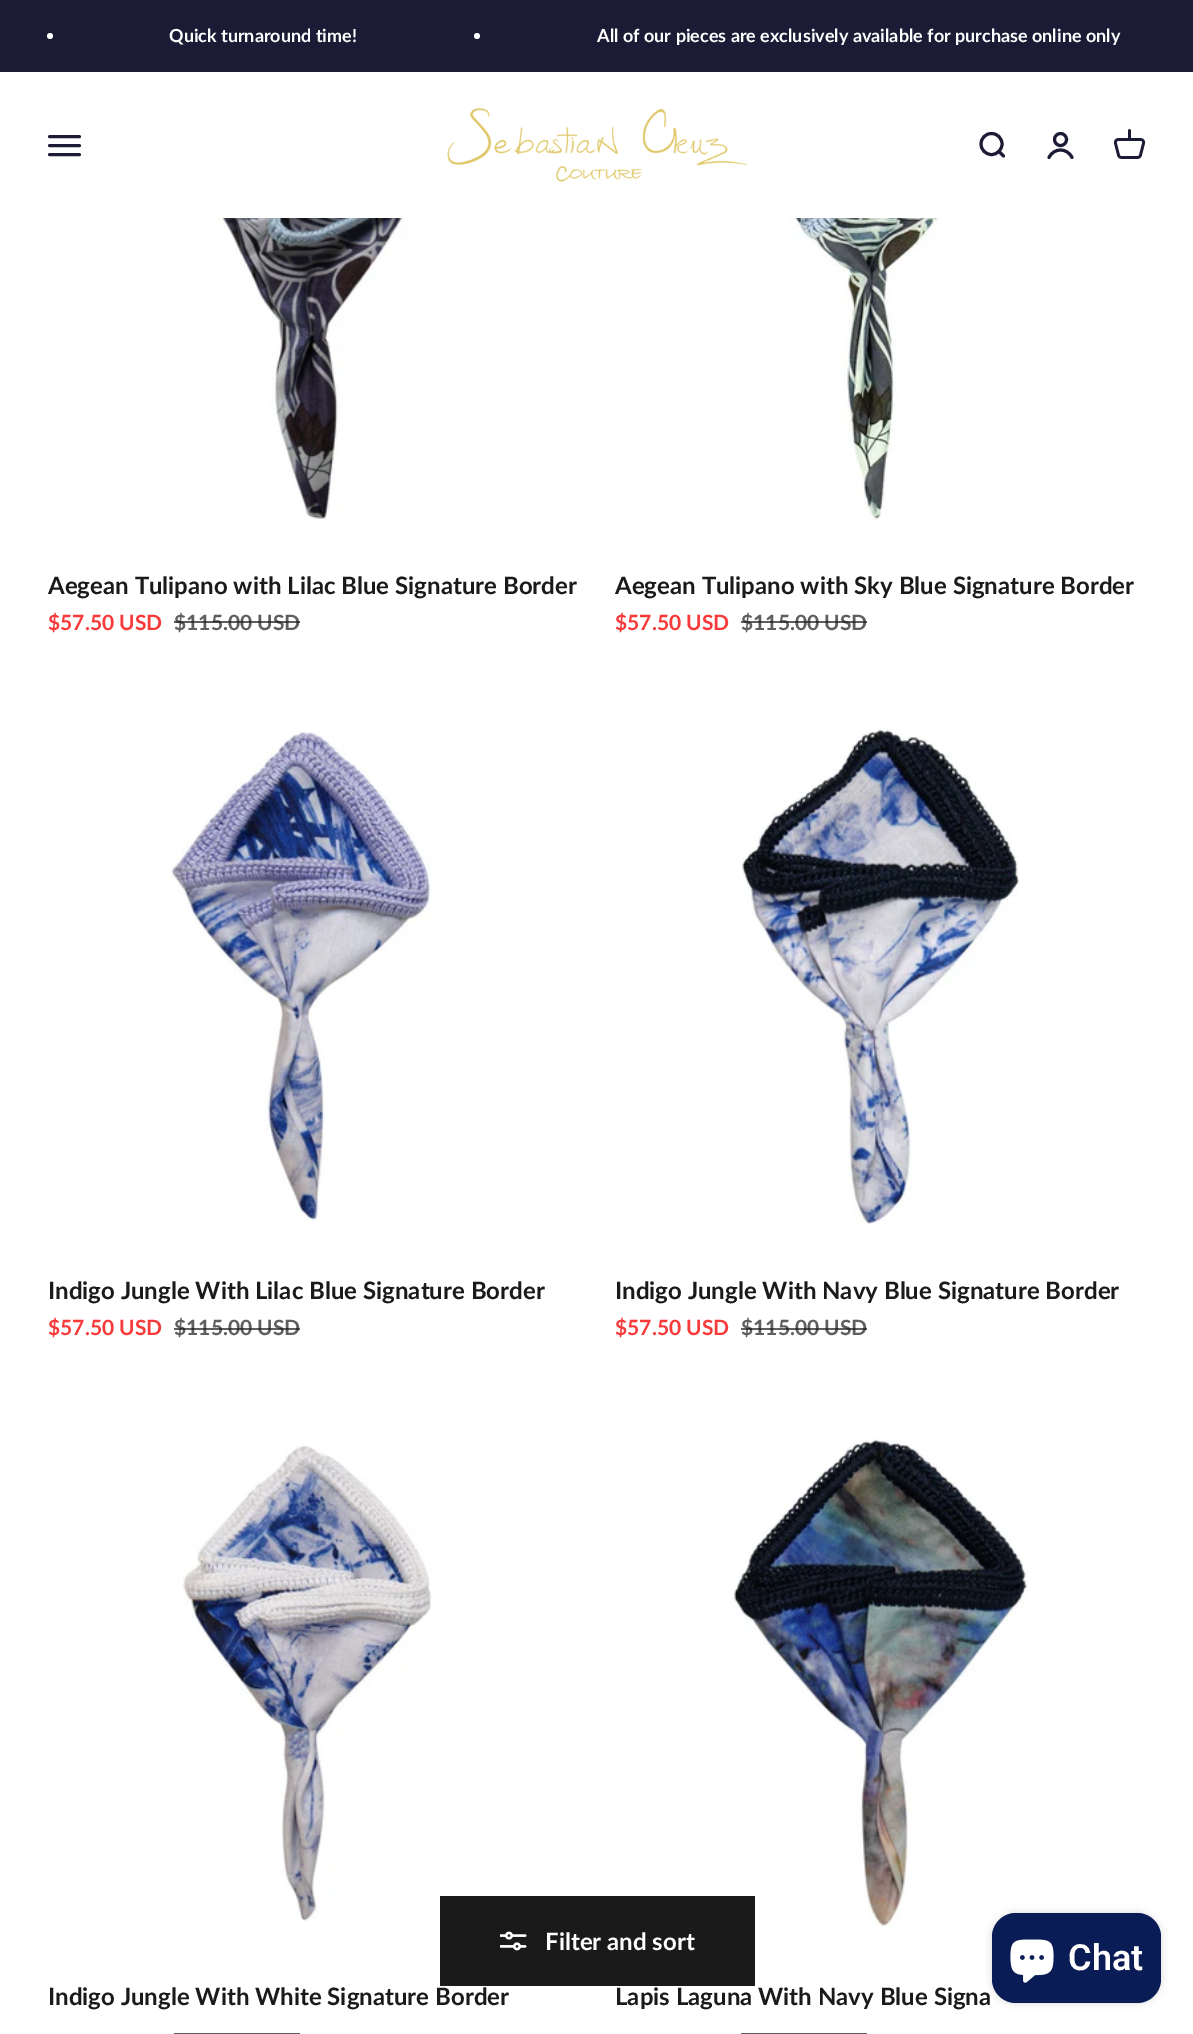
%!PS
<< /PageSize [1193 2034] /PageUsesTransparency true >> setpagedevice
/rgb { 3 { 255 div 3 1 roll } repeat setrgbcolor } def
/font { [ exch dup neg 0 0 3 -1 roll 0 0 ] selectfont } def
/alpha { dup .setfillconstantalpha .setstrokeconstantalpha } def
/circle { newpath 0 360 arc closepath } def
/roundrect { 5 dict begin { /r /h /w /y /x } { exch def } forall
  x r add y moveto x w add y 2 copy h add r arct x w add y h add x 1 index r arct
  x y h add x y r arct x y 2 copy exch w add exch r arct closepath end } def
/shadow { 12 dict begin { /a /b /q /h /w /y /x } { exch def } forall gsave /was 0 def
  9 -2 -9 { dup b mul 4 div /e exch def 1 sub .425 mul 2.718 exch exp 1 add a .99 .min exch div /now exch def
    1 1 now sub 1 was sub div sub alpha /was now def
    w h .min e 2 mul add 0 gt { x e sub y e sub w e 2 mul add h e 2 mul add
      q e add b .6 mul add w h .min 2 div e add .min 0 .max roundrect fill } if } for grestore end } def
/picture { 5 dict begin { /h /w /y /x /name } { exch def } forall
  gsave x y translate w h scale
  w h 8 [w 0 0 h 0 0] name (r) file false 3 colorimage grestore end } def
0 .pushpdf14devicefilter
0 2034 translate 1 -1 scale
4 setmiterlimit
255 255 255 rgb
0 0 1193 2034 rectfill
27 27 54 rgb
0 0 1193 72 rectfill
255 255 255 rgb
50 36 3 circle fill
477 36 3 circle fill
27 27 54 rgb
3 setlinewidth
1 setlinecap
49.5 136.5 moveto 79.5 136.5 lineto 49.5 145.5 moveto 79.5 145.5 lineto 49.5 154.5 moveto 79.5 154.5 lineto stroke
(img/1.rgb) 447 108 300 74 picture
0 setlinecap
991.5 144 10.5 circle stroke
1 setlinecap
1 setlinejoin
999 151.5 moveto 1003.5 156 lineto stroke
0 setlinecap
0 setlinejoin
1060.5 139.5 6 circle stroke
1 setlinecap
1049 157.5 moveto 1054 147.5 1067 147.5 1072 157.5 curveto stroke
(img/2.rgb) 1113 129 33 30 picture
(img/3.rgb) 187 218 239 303 picture
(img/4.rgb) 763 218 218 303 picture
(img/5.rgb) 168 732 263 489 picture
(img/6.rgb) 742 727 277 504 picture
(img/7.rgb) 182 1445 250 476 picture
0.7 alpha
26 26 26 rgb
174 2033 126 1 rectfill
1 alpha
(img/8.rgb) 732 1439 297 488 picture
0.7 alpha
741 2033 126 1 rectfill
1 alpha
440 1896 315 90 rectfill
(img/9.rgb) 500 1931 27 20 picture
0 0 0 rgb
992 1913 169 90 24 4 0.15 shadow
9 28 86 rgb
992 1913 169 90 24 roundrect fill
(img/10.rgb) 1010 1939 44 44 picture
/Lato-Bold 18 font
255 255 255 rgb
169 42 moveto (Quick turnaround time!) show
597 42 moveto (All of our pieces are exclusively available for purchase online only) show
/Lato-Bold 24 font
26 26 26 rgb
48 594 moveto (Aegean Tulipano with Lilac Blue Signature Border) show
/Lato-Bold 21 font
248 58 58 rgb
48 630 moveto ($57.50 USD) show
95 95 95 rgb
174 630 moveto ($115.00 USD) show
0.7 alpha
26 26 26 rgb
174 621 126 2 rectfill
/Lato-Bold 24 font
1 alpha
615 594 moveto (Aegean Tulipano with Sky Blue Signature Border) show
/Lato-Bold 21 font
248 58 58 rgb
615 630 moveto ($57.50 USD) show
95 95 95 rgb
741 630 moveto ($115.00 USD) show
0.7 alpha
26 26 26 rgb
741 621 126 2 rectfill
/Lato-Bold 24 font
1 alpha
48 1299 moveto (Indigo Jungle With Lilac Blue Signature Border) show
/Lato-Bold 21 font
248 58 58 rgb
48 1335 moveto ($57.50 USD) show
95 95 95 rgb
174 1335 moveto ($115.00 USD) show
0.7 alpha
26 26 26 rgb
174 1328 126 2 rectfill
/Lato-Bold 24 font
1 alpha
615 1299 moveto (Indigo Jungle With Navy Blue Signature Border) show
/Lato-Bold 21 font
248 58 58 rgb
615 1335 moveto ($57.50 USD) show
95 95 95 rgb
741 1335 moveto ($115.00 USD) show
0.7 alpha
26 26 26 rgb
741 1328 126 2 rectfill
/Lato-Bold 24 font
1 alpha
48 2005 moveto (Indigo Jungle With White Signature Border) show
615 2005 moveto (Lapis Laguna With Navy Blue Signa) show
255 255 255 rgb
545 1950 moveto (Filter and sort) show
/Roboto-SemiBold 36 font
1068 1970 moveto (Chat) show
.poppdf14devicefilter showpage
